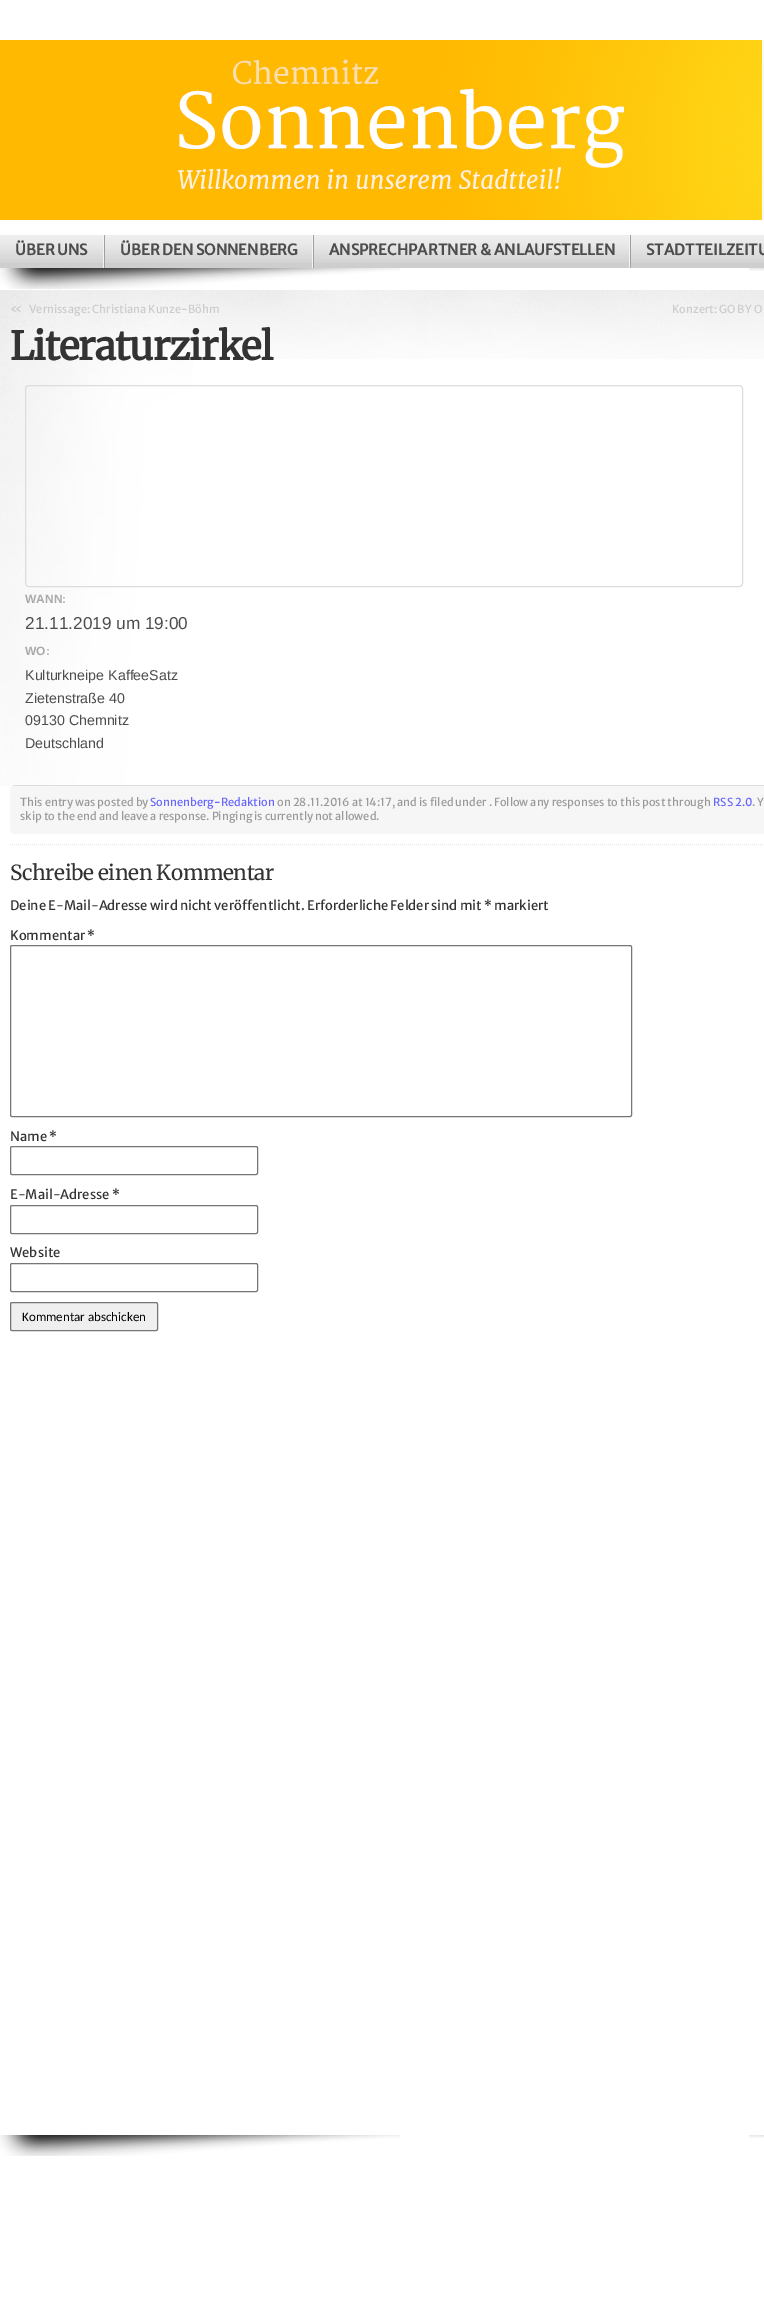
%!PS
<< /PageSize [764 2309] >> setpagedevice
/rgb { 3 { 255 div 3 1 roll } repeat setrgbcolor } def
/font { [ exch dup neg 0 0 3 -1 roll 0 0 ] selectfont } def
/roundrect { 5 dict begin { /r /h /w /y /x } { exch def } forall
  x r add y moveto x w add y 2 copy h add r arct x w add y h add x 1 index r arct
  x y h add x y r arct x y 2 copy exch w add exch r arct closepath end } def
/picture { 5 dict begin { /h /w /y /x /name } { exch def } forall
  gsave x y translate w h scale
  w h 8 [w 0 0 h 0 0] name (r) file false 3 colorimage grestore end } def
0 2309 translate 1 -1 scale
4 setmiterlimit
255 255 255 rgb
0 0 764 2309 rectfill
(img/1.rgb) 0 40 764 180 picture
(img/2.rgb) 0 268 400 21 picture
(img/3.rgb) 749 268 15 3 picture
206 206 206 rgb
0 263 764 5 rectfill
(img/4.rgb) 0 235 764 28 picture
(img/5.rgb) 103 235 2 33 picture
(img/5.rgb) 312 235 2 33 picture
(img/5.rgb) 629 235 2 33 picture
(img/6.rgb) 193 290 571 69 picture
(img/7.rgb) 0 290 193 496 picture
232 232 232 rgb
[1 1] 0 setdash
10 844.5 moveto 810 844.5 lineto stroke
221 221 221 rgb
[] 0 setdash
25.5 385.5 717 201 3.5 roundrect stroke
246 246 246 rgb
10 785 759 49 5 roundrect fill
221 221 221 rgb
13 785 751 1 rectfill
118 118 118 rgb
10.5 945.5 621 171 1.5 roundrect stroke
10.5 1146.5 247 28 1.5 roundrect stroke
10.5 1205.5 247 28 1.5 roundrect stroke
10.5 1263.5 247 28 1.5 roundrect stroke
239 239 239 rgb
10.5 1302.5 147 28 1.5 roundrect gsave fill grestore
118 118 118 rgb
stroke
(img/2.rgb) 0 2135 400 21 picture
(img/3.rgb) 749 2135 15 3 picture
/MerriweatherSans-Bold 15 font
77 77 77 rgb
[
  [(ÜBER UNS) 15 255]
  [(ÜBER DEN SONNENBERG) 120 255]
  [(ANSPRECHPARTNER & ANLAUFSTELLEN) 329 255]
  [(STADTTEILZEITU) 646 255]
] { aload pop moveto show } forall
/MerriweatherSans-Regular 13 font
204 204 204 rgb
10 313 moveto («) show
/MerriweatherSans-Regular 11.05 font
29 313 moveto (Vernissage: Christiana Kunze-Böhm) show
672 313 moveto (Konzert: GO BY O) show
/Merriweather-Bold 39 font
51 51 51 rgb
10 360 moveto -1 0 (Literaturzirkel) ashow
/LiberationSans-Bold 12 font
170 170 170 rgb
25 603 moveto (WANN:) show
/LiberationSans-Regular 17.25 font
77 77 77 rgb
25 629 moveto (21.11.2019 um 19:00) show
/LiberationSans-Bold 12 font
170 170 170 rgb
25 655 moveto (WO:) show
/LiberationSans-Regular 14.25 font
77 77 77 rgb
[
  [(Kulturkneipe KaffeeSatz) 25 680]
  [(Zietenstraße 40) 25 703]
  [(09130 Chemnitz) 25 725]
  [(Deutschland) 25 748]
] { aload pop moveto show } forall
/MerriweatherSans-Regular 11.05 font
153 153 153 rgb
20 806 moveto (This entry was posted by) show
102 102 255 rgb
150 806 moveto (Sonnenberg-Redaktion) show
153 153 153 rgb
277 806 moveto (on 28.11.2016 at 14:17, and is filed under . Follow any responses to this post through) show
102 102 255 rgb
713 806 moveto (RSS 2.0) show
153 153 153 rgb
752 806 moveto (. Y) show
20 820 moveto (skip to the end and leave a response. Pinging is currently not allowed.) show
/Merriweather-Light 20.75 font
51 51 51 rgb
10 880 moveto -0.4 0 (Schreibe einen Kommentar) ashow
/MerriweatherSans-Regular 13 font
[
  [(Deine E-Mail-Adresse wird nicht veröffentlicht. Erforderliche Felder sind mit * markiert) 10 910]
  [(Kommentar *) 10 940]
  [(Name *) 10 1141]
  [(E-Mail-Adresse *) 10 1199]
  [(Website) 10 1257]
] { aload pop moveto show } forall
/Carlito-Regular 13 font
0 0 0 rgb
22 1321 moveto (Kommentar abschicken) show
showpage
